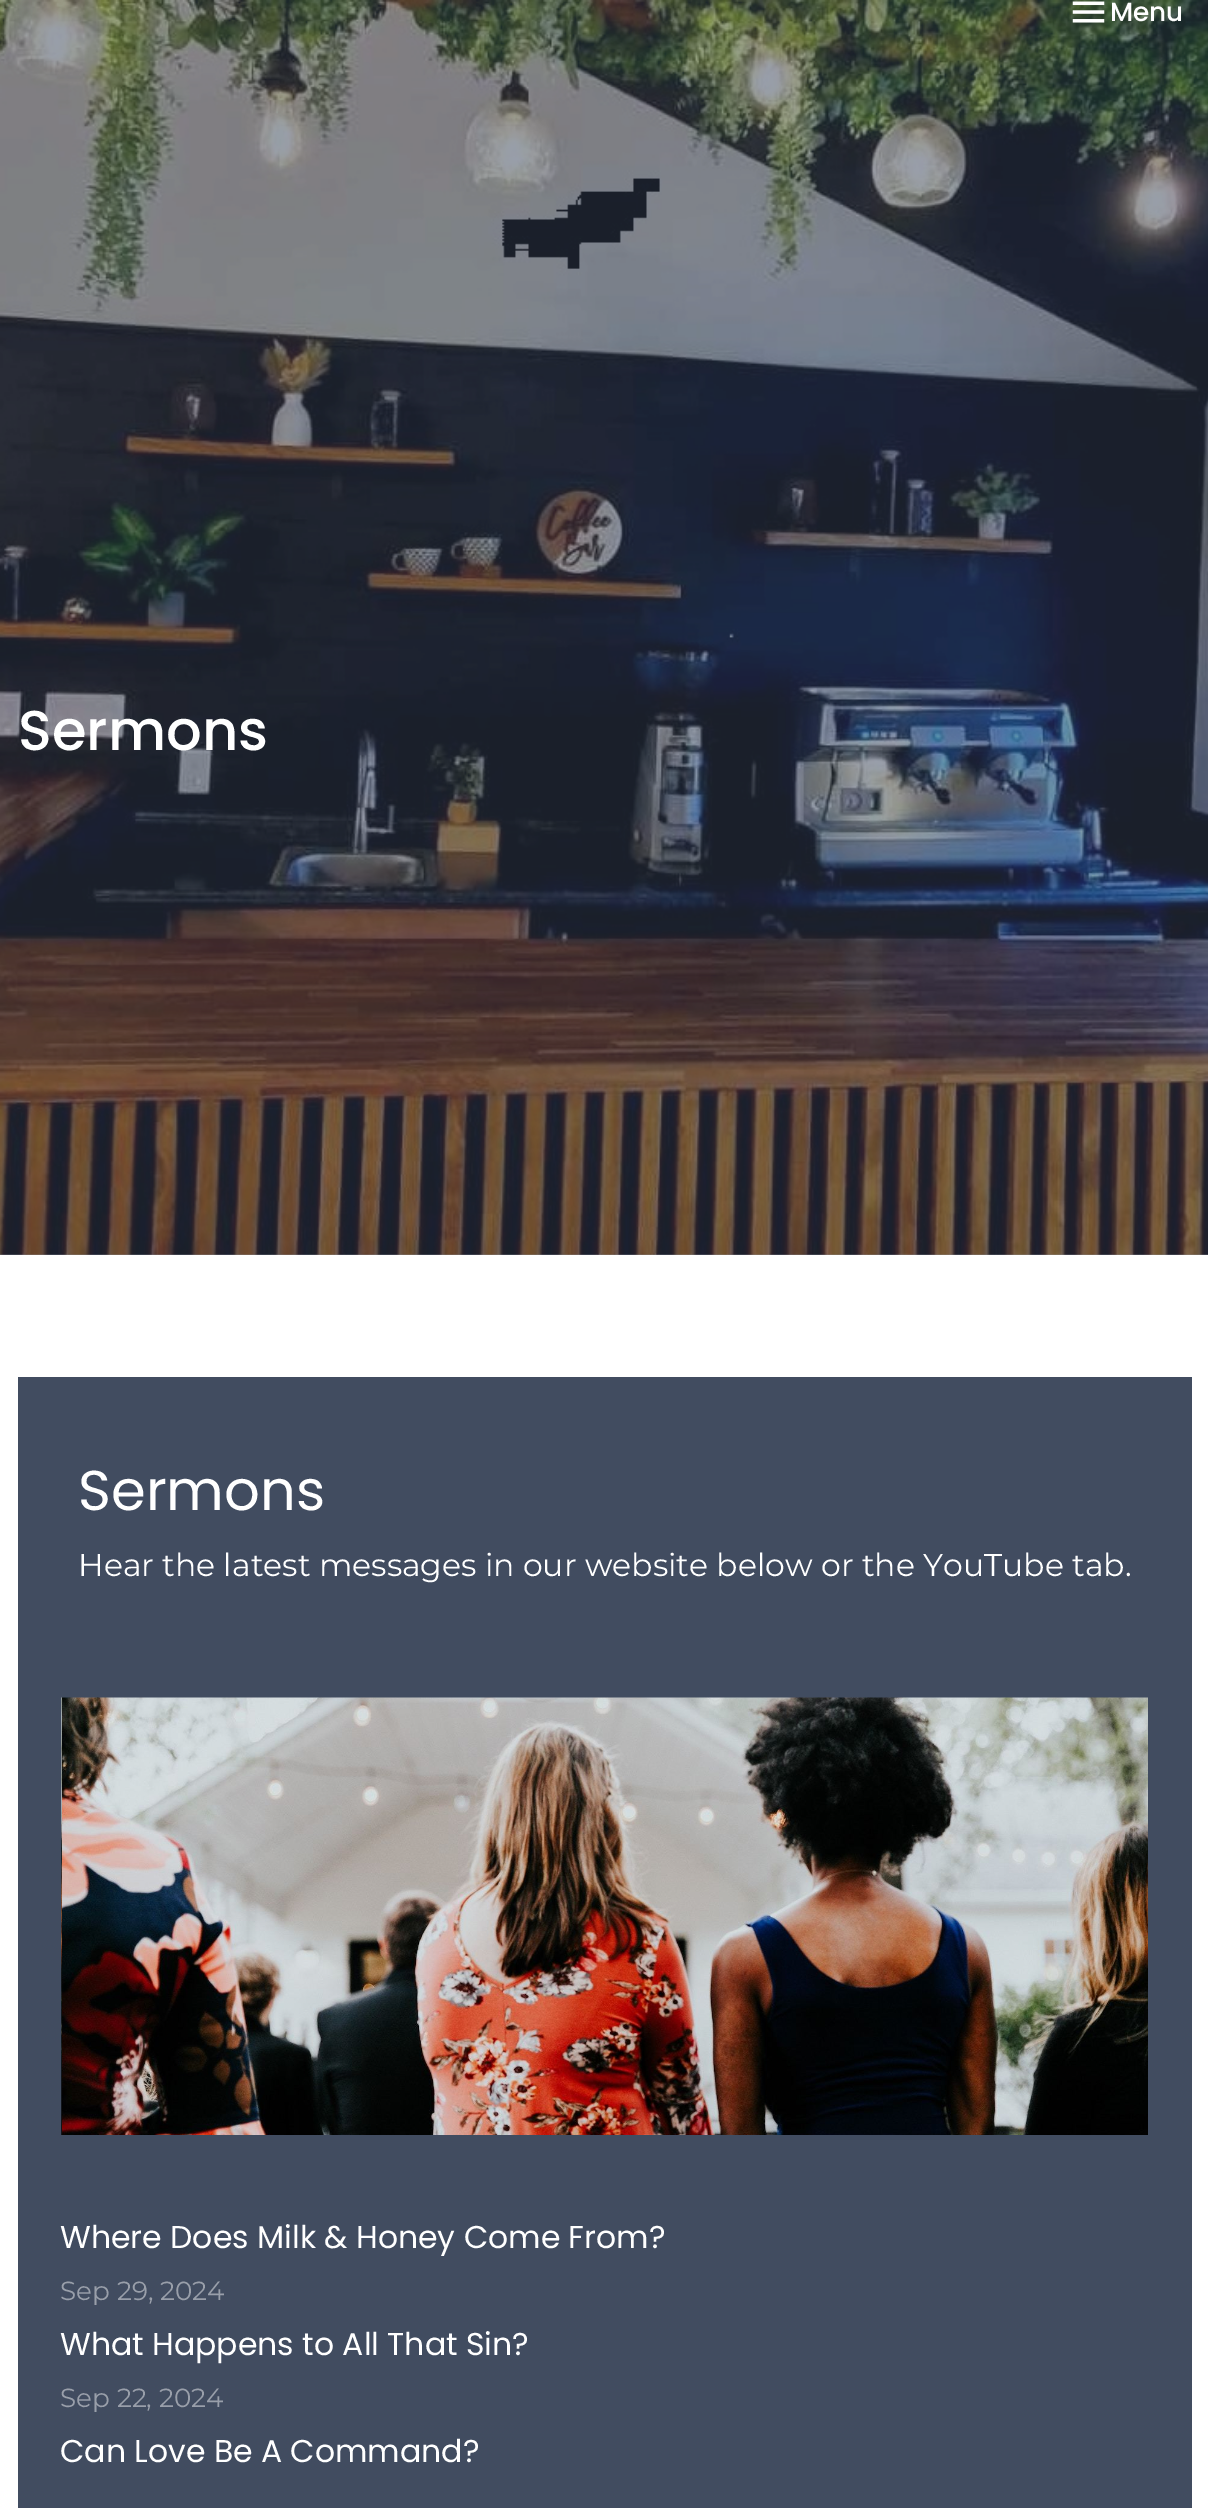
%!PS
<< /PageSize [1208 2508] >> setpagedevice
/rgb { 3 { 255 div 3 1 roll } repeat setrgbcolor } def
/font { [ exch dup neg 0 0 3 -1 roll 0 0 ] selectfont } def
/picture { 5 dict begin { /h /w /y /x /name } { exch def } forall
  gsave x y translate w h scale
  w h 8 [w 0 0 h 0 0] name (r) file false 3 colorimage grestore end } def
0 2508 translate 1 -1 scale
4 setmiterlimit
255 255 255 rgb
0 0 1208 2508 rectfill
(img/2.rgb) 0 0 1208 1255 picture
(img/1.rgb) 1072 1 33 22 picture
65 76 96 rgb
18 1377 1174 1131 rectfill
(img/3.rgb) 61 1697 1087 438 picture
/Poppins-Medium 26.25 font
255 255 255 rgb
1110 21 moveto (Menu) show
/Poppins-Medium 56 font
18 750 moveto (Sermons) show
/Poppins-Regular 56 font
78 1510 moveto (Sermons) show
/Montserrat-Regular 31.5 font
78 1576 moveto (Hear the latest messages in our website below or the YouTube tab.) show
/Poppins-Regular 31.5 font
60 2248 moveto (Where Does Milk & Honey Come From?) show
/Montserrat-Regular 26.25 font
153 159 170 rgb
60 2300 moveto (Sep 29, 2024) show
/Poppins-Regular 31.5 font
255 255 255 rgb
60 2355 moveto (What Happens to All That Sin?) show
/Montserrat-Regular 26.25 font
153 159 170 rgb
60 2407 moveto (Sep 22, 2024) show
/Poppins-Regular 31.5 font
255 255 255 rgb
60 2462 moveto (Can Love Be A Command?) show
showpage
